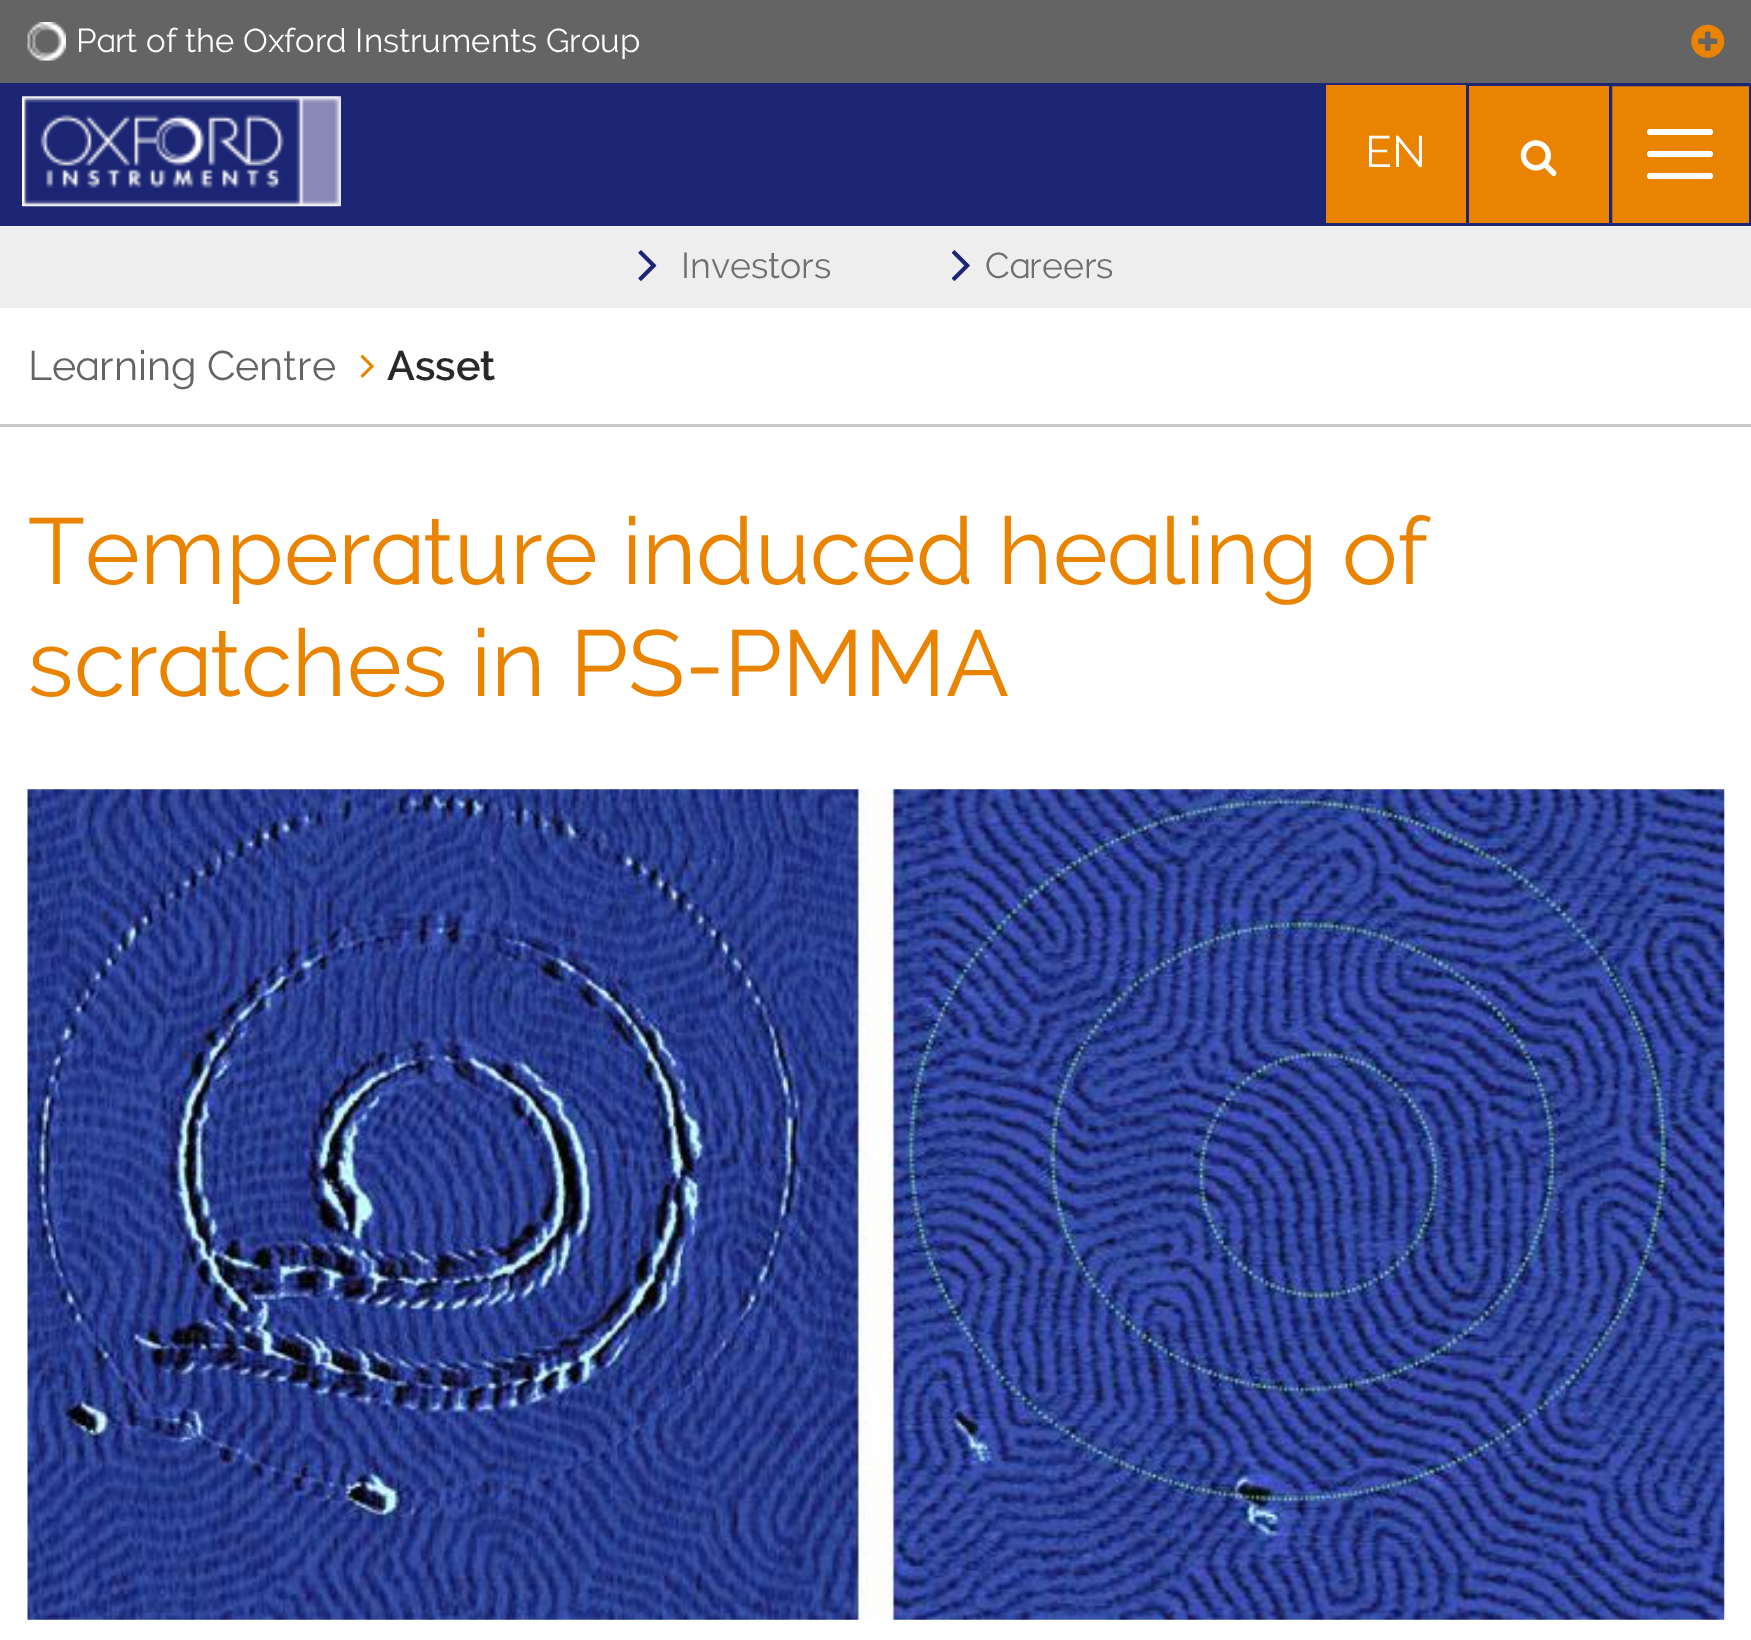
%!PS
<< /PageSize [1751 1640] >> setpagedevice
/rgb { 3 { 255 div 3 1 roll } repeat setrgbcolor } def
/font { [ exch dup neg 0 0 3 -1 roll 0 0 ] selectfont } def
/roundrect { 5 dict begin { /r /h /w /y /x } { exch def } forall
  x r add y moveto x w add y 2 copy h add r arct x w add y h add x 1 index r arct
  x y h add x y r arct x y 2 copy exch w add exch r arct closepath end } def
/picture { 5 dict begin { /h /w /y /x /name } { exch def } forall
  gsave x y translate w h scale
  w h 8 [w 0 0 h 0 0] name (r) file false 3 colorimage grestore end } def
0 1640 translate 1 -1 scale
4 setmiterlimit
255 255 255 rgb
0 0 1751 1640 rectfill
100 100 100 rgb
0 0 1751 83 rectfill
(img/1.rgb) 27 22 39 39 picture
(img/2.rgb) 1691 24 34 34 picture
28 38 116 rgb
0 83 1323 143 rectfill
(img/3.rgb) 22 96 319 111 picture
[
  [1469 86 140 137 233 131 0]
  [1466 83 143 3 28 38 116]
  [1323 223 286 3 28 38 116]
  [1466 83 3 143 28 38 116]
] { aload pop rgb rectfill } forall
(img/4.rgb) 1520 140 37 36 picture
233 131 0 rgb
1610.5 84.5 moveto 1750.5 84.5 lineto 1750.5 224.5 lineto 1610.5 224.5 lineto closepath gsave fill grestore
28 38 116 rgb
3 setlinewidth
stroke
255 255 255 rgb
1647 129 66 6 3 roundrect fill
1647 151 66 6 3 roundrect fill
1647 173 66 6 3 roundrect fill
[
  [1323 83 143 2 28 38 116]
  [1323 83 3 143 28 38 116]
  [1326 85 140 138 233 131 0]
  [0 226 1751 82 238 238 238]
] { aload pop rgb rectfill } forall
(img/5.rgb) 638 250 19 31 picture
(img/6.rgb) 951 250 19 31 picture
201 201 201 rgb
0 424 1751 3 rectfill
(img/7.rgb) 360 354 14 24 picture
(img/8.rgb) 27 789 1698 831 picture
/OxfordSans-Regular 33 font
255 255 255 rgb
76 52 moveto (Part of the Oxford Instruments Group) show
/OxfordSans-Regular 44 font
1365 167 moveto (EN) show
/OxfordSans-Regular 35.75 font
109 111 113 rgb
681 278 moveto (Investors) show
985 278 moveto (Careers) show
/OxfordSans-Regular 41.25 font
100 100 100 rgb
28 380 moveto (Learning Centre) show
/OxfordSans-SemiBold 41.25 font
40 40 40 rgb
387 380 moveto (Asset) show
/OxfordSans-Regular 93.5 font
233 131 0 rgb
28 584 moveto (Temperature induced healing of) show
28 696 moveto (scratches in PS-PMMA) show
showpage
